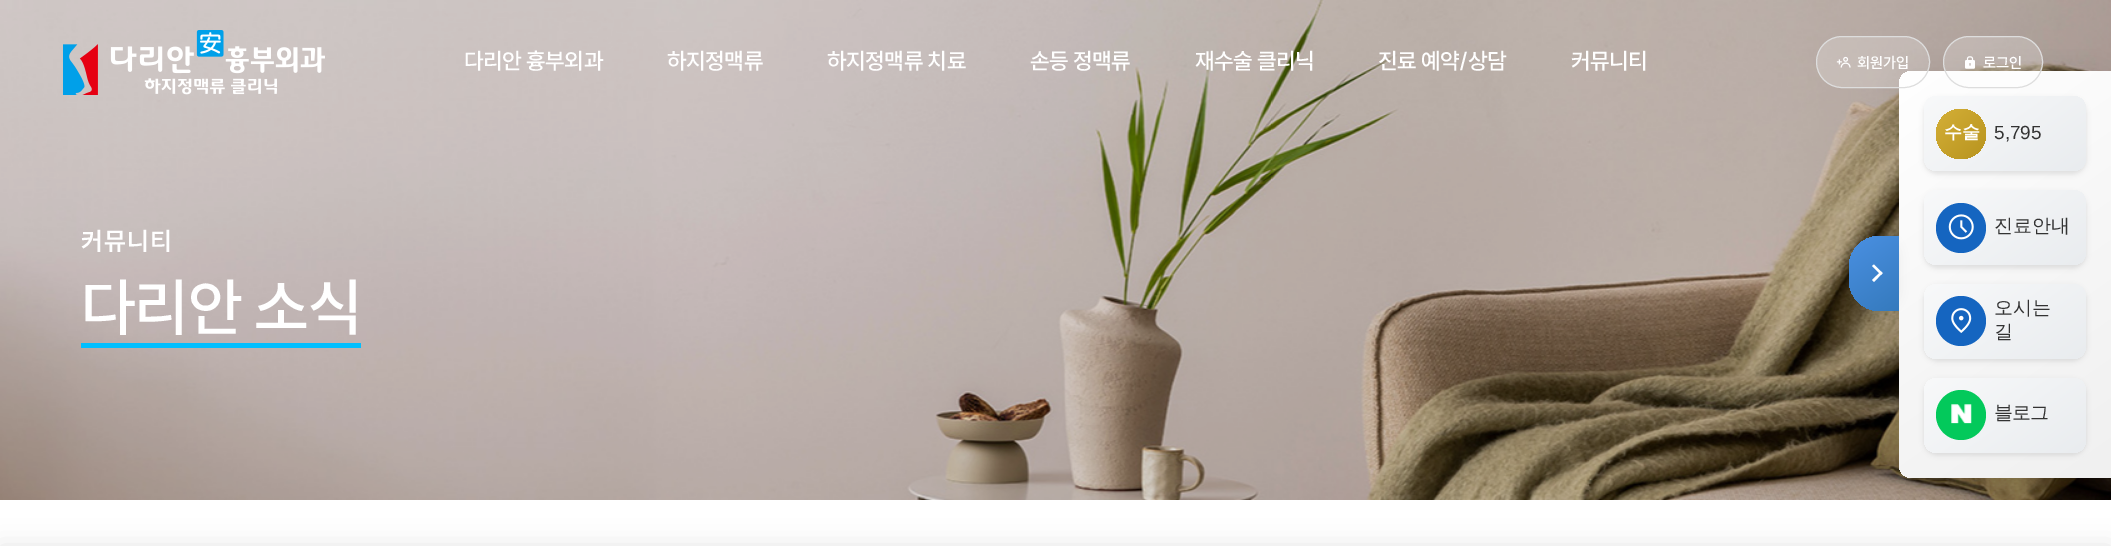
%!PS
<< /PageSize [2111 546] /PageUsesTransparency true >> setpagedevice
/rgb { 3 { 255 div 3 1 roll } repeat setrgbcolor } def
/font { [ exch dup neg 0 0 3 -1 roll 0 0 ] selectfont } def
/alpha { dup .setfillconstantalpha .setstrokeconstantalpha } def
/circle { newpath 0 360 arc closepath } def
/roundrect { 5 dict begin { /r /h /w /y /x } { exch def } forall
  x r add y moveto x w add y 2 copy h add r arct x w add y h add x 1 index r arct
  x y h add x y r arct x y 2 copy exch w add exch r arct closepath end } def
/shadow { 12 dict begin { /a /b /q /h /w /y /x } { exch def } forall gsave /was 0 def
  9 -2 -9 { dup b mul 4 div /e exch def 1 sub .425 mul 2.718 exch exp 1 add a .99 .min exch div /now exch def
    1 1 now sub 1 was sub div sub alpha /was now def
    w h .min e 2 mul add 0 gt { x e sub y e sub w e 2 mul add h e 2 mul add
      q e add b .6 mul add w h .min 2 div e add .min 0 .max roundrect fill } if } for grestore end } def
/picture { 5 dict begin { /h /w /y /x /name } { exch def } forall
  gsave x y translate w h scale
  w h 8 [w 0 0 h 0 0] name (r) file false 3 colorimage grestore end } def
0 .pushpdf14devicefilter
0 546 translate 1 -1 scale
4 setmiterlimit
255 255 255 rgb
0 0 2111 546 rectfill
(img/4.rgb) 0 0 2111 500 picture
(img/1.rgb) 63 30 262 65 picture
0 0 0 rgb
1899 71 212 407 13 12.5 0.05 shadow
gsave 1912 71 moveto 2111 71 lineto 2111 478 lineto 1912 478 lineto 1905 478 1899 472 1899 465 curveto 1899 84 lineto 1899 77 1905 71 1912 71 curveto closepath clip newpath
<< /ShadingType 2 /ColorSpace /DeviceRGB /Coords [1875 88 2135 460] /Extend [true true] /Function << /FunctionType 2 /Domain [0 1] /C0 [1 1 1] /C1 [0.941 0.941 0.941] /N 1 >> >> shfill grestore
0.2 alpha
255 255 255 rgb
1816.5 36.5 113 51 25.5 roundrect fill
1 alpha
221 221 221 rgb
1816.5 36.5 113 51 25.5 roundrect stroke
(img/2.rgb) 1836 56 15 12 picture
0.2 alpha
255 255 255 rgb
1943.5 36.5 99 51 25.5 roundrect fill
1 alpha
221 221 221 rgb
1943.5 36.5 99 51 25.5 roundrect stroke
(img/3.rgb) 1965 56 10 13 picture
0 191 255 rgb
81 343 280 5 rectfill
0 0 0 rgb
1846 236 50 75 31 6 0.1 shadow
gsave 1880 236 moveto 1899 236 lineto 1899 311 lineto 1880 311 lineto 1863 311 1849 297 1849 280 curveto 1849 267 lineto 1849 250 1863 236 1880 236 curveto closepath clip newpath
<< /ShadingType 2 /ColorSpace /DeviceRGB /Coords [1848 236 1900 310] /Extend [true true] /Function << /FunctionType 2 /Domain [0 1] /C0 [0.29 0.565 0.886] /C1 [0.208 0.478 0.741] /N 1 >> >> shfill grestore
255 255 255 rgb
1881 275 moveto 1872 266 lineto 1874 264.5 lineto 1882.5 273 lineto closepath fill
1874 282 moveto 1872 280 lineto 1881 271.5 lineto 1882.5 273 lineto closepath fill
0 0 0 rgb
1924 99 162 75 13 2.5 0.1 shadow
gsave 1924 96 162 75 13 roundrect clip newpath
<< /ShadingType 2 /ColorSpace /DeviceRGB /Coords [1961 70 2049 196] /Extend [true true] /Function << /FunctionType 2 /Domain [0 1] /C0 [0.973 0.976 0.98] /C1 [0.914 0.925 0.937] /N 1 >> >> shfill grestore
gsave 1961 134 25 circle clip newpath
<< /ShadingType 2 /ColorSpace /DeviceRGB /Coords [1936 108 1986 158] /Extend [true true] /Function << /FunctionType 2 /Domain [0 1] /C0 [0.831 0.686 0.216] /C1 [0.722 0.58 0.122] /N 1 >> >> shfill grestore
1924 193 162 75 13 2.5 0.1 shadow
gsave 1924 190 162 75 13 roundrect clip newpath
<< /ShadingType 2 /ColorSpace /DeviceRGB /Coords [1961 164 2049 290] /Extend [true true] /Function << /FunctionType 2 /Domain [0 1] /C0 [0.973 0.976 0.98] /C1 [0.914 0.925 0.937] /N 1 >> >> shfill grestore
21 101 192 rgb
1961 228 25 circle fill
(img/5.rgb) 1948 214 26 26 picture
0 0 0 rgb
1924 286 162 75 13 2.5 0.1 shadow
gsave 1924 284 162 75 13 roundrect clip newpath
<< /ShadingType 2 /ColorSpace /DeviceRGB /Coords [1961 257 2049 384] /Extend [true true] /Function << /FunctionType 2 /Domain [0 1] /C0 [0.973 0.976 0.98] /C1 [0.914 0.925 0.937] /N 1 >> >> shfill grestore
21 101 192 rgb
1961 321 25 circle fill
(img/6.rgb) 1951 308 21 25 picture
0 0 0 rgb
1924 380 162 75 13 2.5 0.1 shadow
gsave 1924 378 162 75 13 roundrect clip newpath
<< /ShadingType 2 /ColorSpace /DeviceRGB /Coords [1961 351 2049 478] /Extend [true true] /Function << /FunctionType 2 /Domain [0 1] /C0 [0.973 0.976 0.98] /C1 [0.914 0.925 0.937] /N 1 >> >> shfill grestore
3 201 91 rgb
1961 415 25 circle fill
(img/7.rgb) 1951 404 21 20 picture
0 0 0 rgb
0 546 2111 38 0 12.5 0.1 shadow
/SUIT-SemiBold 22.5 font
255 255 255 rgb
464 69 moveto -0.5 0 (다리안 흉부외과) ashow
667 69 moveto -0.5 0 (하지정맥류) ashow
827 69 moveto -0.5 0 (하지정맥류 치료) ashow
1030 69 moveto -0.5 0 (손등 정맥류) ashow
1195 69 moveto -0.5 0 (재수술 클리닉) ashow
1378 69 moveto -0.5 0 (진료 예약/상담) ashow
1571 69 moveto -0.5 0 (커뮤니티) ashow
/SUIT-SemiBold 15 font
1857 68 moveto (회원가입) show
1983 68 moveto (로그인) show
/SUIT-Bold 25 font
81 250 moveto 1 0 (커뮤니티) ashow
/SUIT-SemiBold 62.5 font
81 330 moveto -1.25 0 (다리안 소식) ashow
/WenQuanYiZenHei-Bold 18 font
1944 138 moveto (수술) show
/LiberationSans-Regular 19 font
51 51 51 rgb
1994 139 moveto (5,795) show
/WenQuanYiZenHei-Medium 19 font
[
  [(진료안내) 1994 232]
  [(오시는) 1994 314]
  [(길) 1994 338]
] { aload pop moveto show } forall
1994 419 moveto -1.25 0 (블로그) ashow
.poppdf14devicefilter showpage
